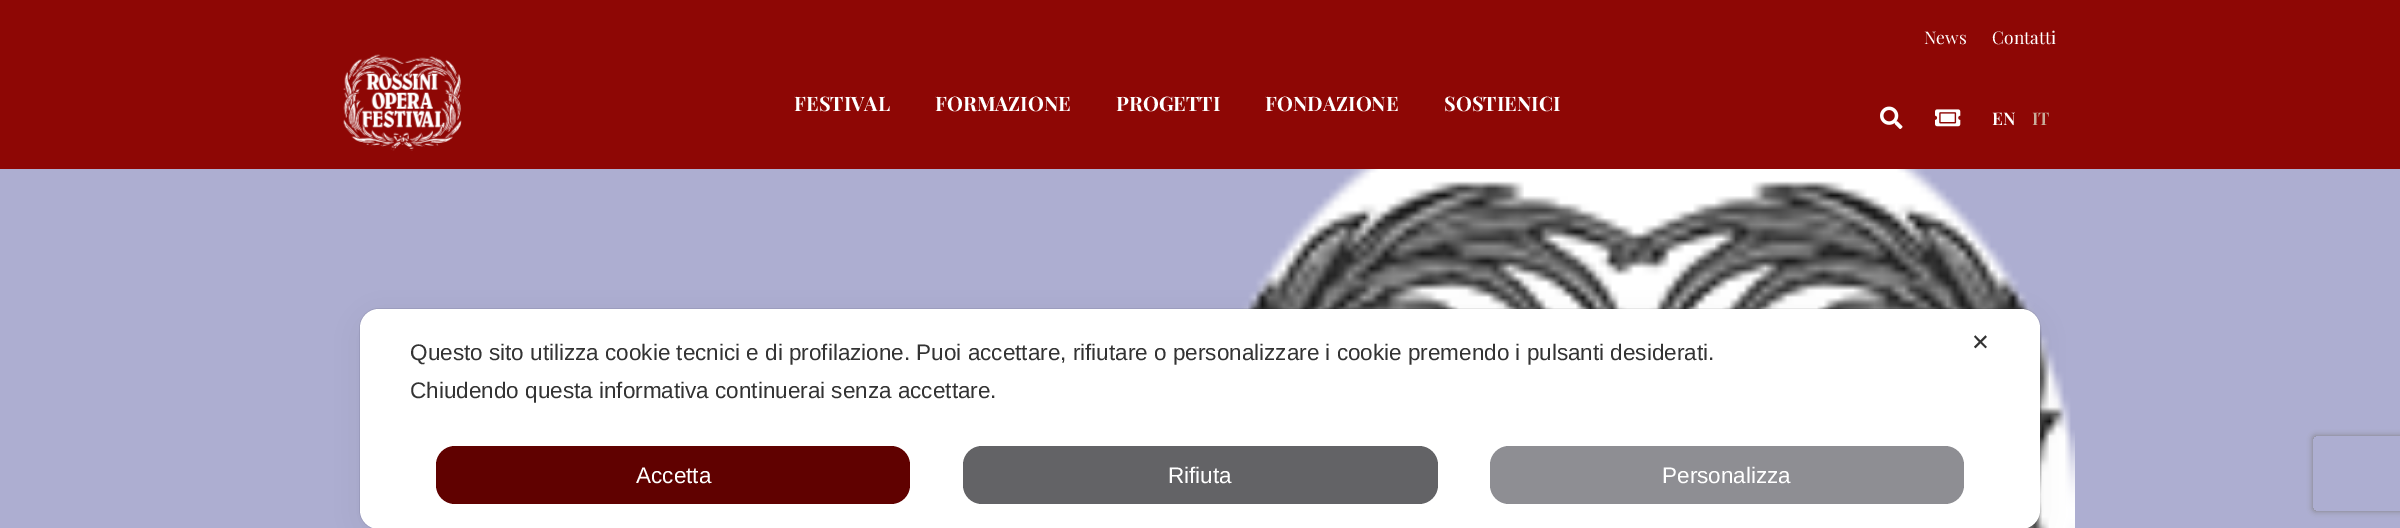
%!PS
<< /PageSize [2400 528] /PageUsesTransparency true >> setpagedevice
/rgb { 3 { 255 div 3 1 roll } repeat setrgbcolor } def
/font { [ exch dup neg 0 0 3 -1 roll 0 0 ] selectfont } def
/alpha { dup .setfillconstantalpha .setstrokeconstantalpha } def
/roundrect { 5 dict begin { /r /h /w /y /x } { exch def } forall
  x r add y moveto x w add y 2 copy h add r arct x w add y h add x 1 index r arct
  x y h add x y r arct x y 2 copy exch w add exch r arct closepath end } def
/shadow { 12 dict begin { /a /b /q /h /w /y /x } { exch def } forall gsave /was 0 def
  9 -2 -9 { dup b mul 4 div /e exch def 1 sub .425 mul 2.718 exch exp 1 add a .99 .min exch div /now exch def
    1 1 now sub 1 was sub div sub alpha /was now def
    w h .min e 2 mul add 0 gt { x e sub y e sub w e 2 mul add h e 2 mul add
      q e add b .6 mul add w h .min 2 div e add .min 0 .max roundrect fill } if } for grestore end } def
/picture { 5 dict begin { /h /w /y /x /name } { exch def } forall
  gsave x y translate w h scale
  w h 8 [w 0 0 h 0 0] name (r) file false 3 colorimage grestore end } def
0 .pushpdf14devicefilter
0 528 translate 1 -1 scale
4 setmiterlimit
173 174 209 rgb
0 0 2400 528 rectfill
142 7 5 rgb
0 0 2400 169 rectfill
(img/1.rgb) 343 54 119 97 picture
(img/2.rgb) 1880 106 23 23 picture
(img/3.rgb) 1935 109 26 18 picture
(img/4.rgb) 1241 169 834 359 picture
gsave
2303 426 moveto 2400 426 lineto 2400 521 lineto 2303 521 lineto closepath 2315.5 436 moveto 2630.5 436 lineto 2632 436 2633 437 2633 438.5 curveto 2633 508.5 lineto 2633 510 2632 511 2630.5 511 curveto 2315.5 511 lineto 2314 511 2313 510 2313 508.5 curveto 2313 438.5 lineto 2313 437 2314 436 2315.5 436 curveto closepath eoclip newpath
128 128 128 rgb
2313 436 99 75 2.5 3 1 shadow
grestore
0.08 alpha
0 0 0 rgb
359.5 308.5 1681 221 19.5 roundrect stroke
1 alpha
360 316 1680 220 19 15 0.05 shadow
255 255 255 rgb
360 309 1680 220 19 roundrect fill
96 1 0 rgb
436 446 474 58 19 roundrect fill
99 99 102 rgb
963 446 475 58 19 roundrect fill
142 142 147 rgb
1490 446 474 58 19 roundrect fill
/PlayfairDisplay-Regular 17.5 font
255 255 255 rgb
1924 44 moveto (News) show
1992 44 moveto (Contatti) show
/PlayfairDisplay-Bold 20 font
[
  [(FESTIVAL) 794 111]
  [(FORMAZIONE) 935 111]
  [(PROGETTI) 1116 111]
  [(FONDAZIONE) 1265 111]
  [(SOSTIENICI) 1444 111]
] { aload pop moveto show } forall
/PlayfairDisplay-SemiBold 17.5 font
1992 125 moveto (EN) show
201 173 155 rgb
2032 125 moveto (IT) show
/LiberationSans-Regular 22.5 font
51 51 51 rgb
410 360 moveto (Questo sito utilizza cookie tecnici e di profilazione. Puoi accettare, rifiutare o personalizzare i cookie premendo i pulsanti desiderati.) show
410 398 moveto (Chiudendo questa informativa continuerai senza accettare.) show
255 255 255 rgb
[
  [(Accetta) 636 483]
  [(Rifiuta) 1168 483]
  [(Personalizza) 1662 483]
] { aload pop moveto show } forall
/DejaVuSans-Regular 22.5 font
51 51 51 rgb
1971 350 moveto (✕) show
.poppdf14devicefilter showpage
